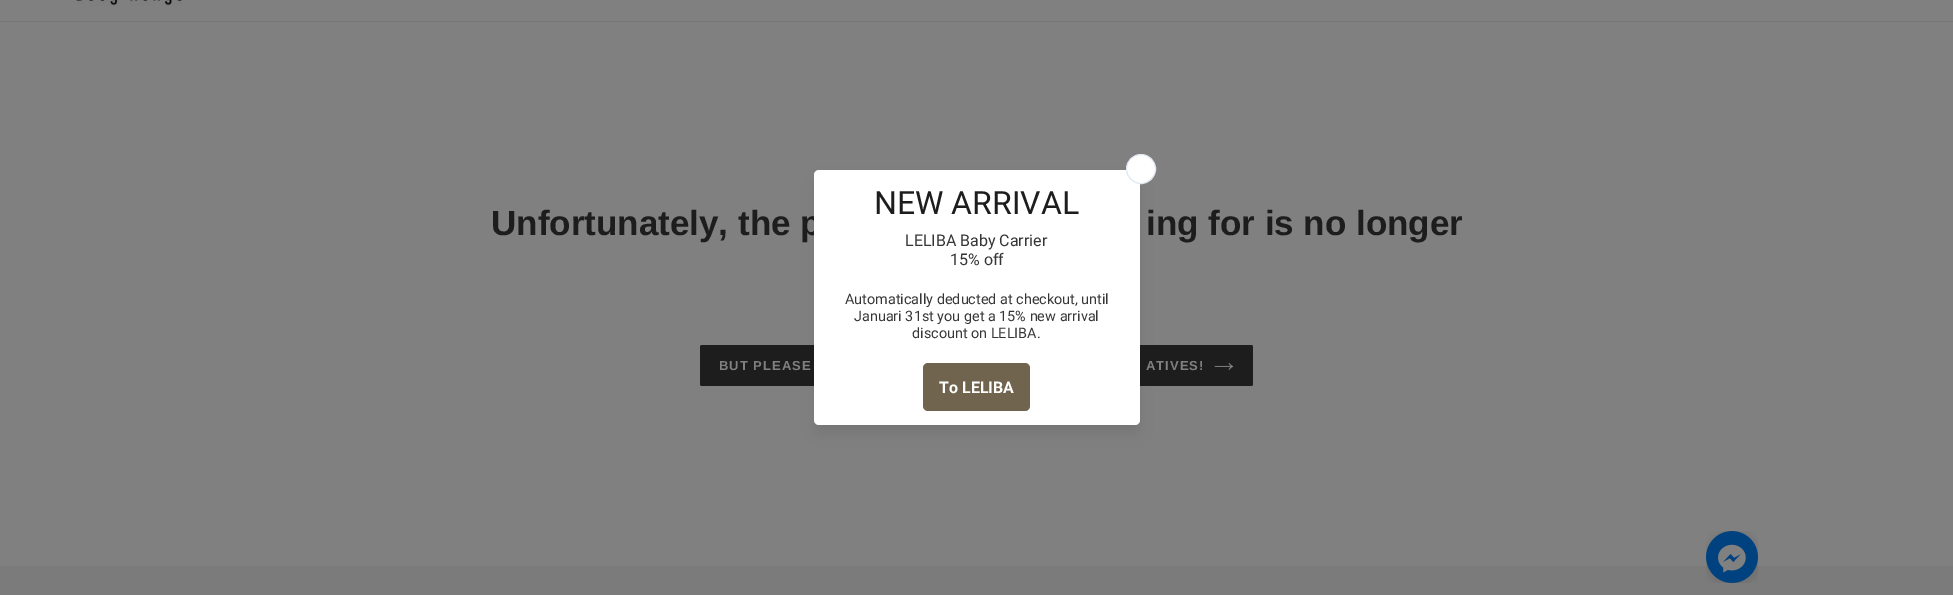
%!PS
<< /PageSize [1953 595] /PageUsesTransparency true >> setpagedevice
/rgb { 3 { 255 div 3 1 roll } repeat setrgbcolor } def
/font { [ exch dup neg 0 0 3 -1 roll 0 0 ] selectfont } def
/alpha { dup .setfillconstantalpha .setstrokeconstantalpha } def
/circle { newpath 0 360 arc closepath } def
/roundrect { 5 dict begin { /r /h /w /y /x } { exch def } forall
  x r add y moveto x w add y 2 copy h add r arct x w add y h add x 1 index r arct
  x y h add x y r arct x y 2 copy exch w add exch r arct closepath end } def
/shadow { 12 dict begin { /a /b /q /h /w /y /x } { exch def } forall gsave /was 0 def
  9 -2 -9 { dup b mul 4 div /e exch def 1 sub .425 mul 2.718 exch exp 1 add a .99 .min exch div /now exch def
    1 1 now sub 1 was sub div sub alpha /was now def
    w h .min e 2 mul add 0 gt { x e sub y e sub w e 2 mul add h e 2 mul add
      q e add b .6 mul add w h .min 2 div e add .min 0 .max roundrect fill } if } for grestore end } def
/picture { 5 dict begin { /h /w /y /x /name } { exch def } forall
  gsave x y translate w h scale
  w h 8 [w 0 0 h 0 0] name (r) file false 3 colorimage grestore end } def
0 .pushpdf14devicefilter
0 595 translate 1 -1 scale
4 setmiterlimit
128 128 128 rgb
0 0 1953 595 rectfill
118 118 118 rgb
0 21 1953 1 rectfill
(img/1.rgb) 76 0 106 6 picture
29 29 29 rgb
700 345 553 41 2 roundrect fill
0 0 0 rgb
817 183 320 249 2 7.5 0.1 shadow
(img/2.rgb) 1214 362 20 8 picture
123 123 123 rgb
0 566 1953 29 rectfill
(img/3.rgb) 1706 531 52 52 picture
/LiberationSans-Bold 35 font
29 29 29 rgb
491 235 moveto (Unfortunately, the p) show
255 255 255 rgb
814 170 326 255 5 roundrect fill
1141 169 14.5 circle gsave fill grestore
226 232 240 rgb
stroke
112 100 78 rgb
923 363 107 48 5 roundrect fill
/Roboto-Bold 16 font
255 255 255 rgb
939 393 moveto (To LELIBA) show
/Roboto-Regular 14.4 font
54 54 54 rgb
[
  [(discount on LELIBA.) 912 338]
  [(Januari 31st you get a 15% new arrival) 854 321]
  [(Automatically deducted at checkout, until) 845 304]
] { aload pop moveto show } forall
/Roboto-Regular 16 font
950 265 moveto (15% off) show
905 246 moveto (LELIBA Baby Carrier) show
/Roboto-Regular 32 font
29 29 29 rgb
874 214 moveto (NEW ARRIVAL) show
/LiberationSans-Bold 35 font
1146 235 moveto (ing for is no longer) show
/LiberationSans-Bold 13 font
128 128 128 rgb
719 370 moveto 1 0 (BUT PLEASE) ashow
1146 370 moveto 1 0 (ATIVES!) ashow
.poppdf14devicefilter showpage
